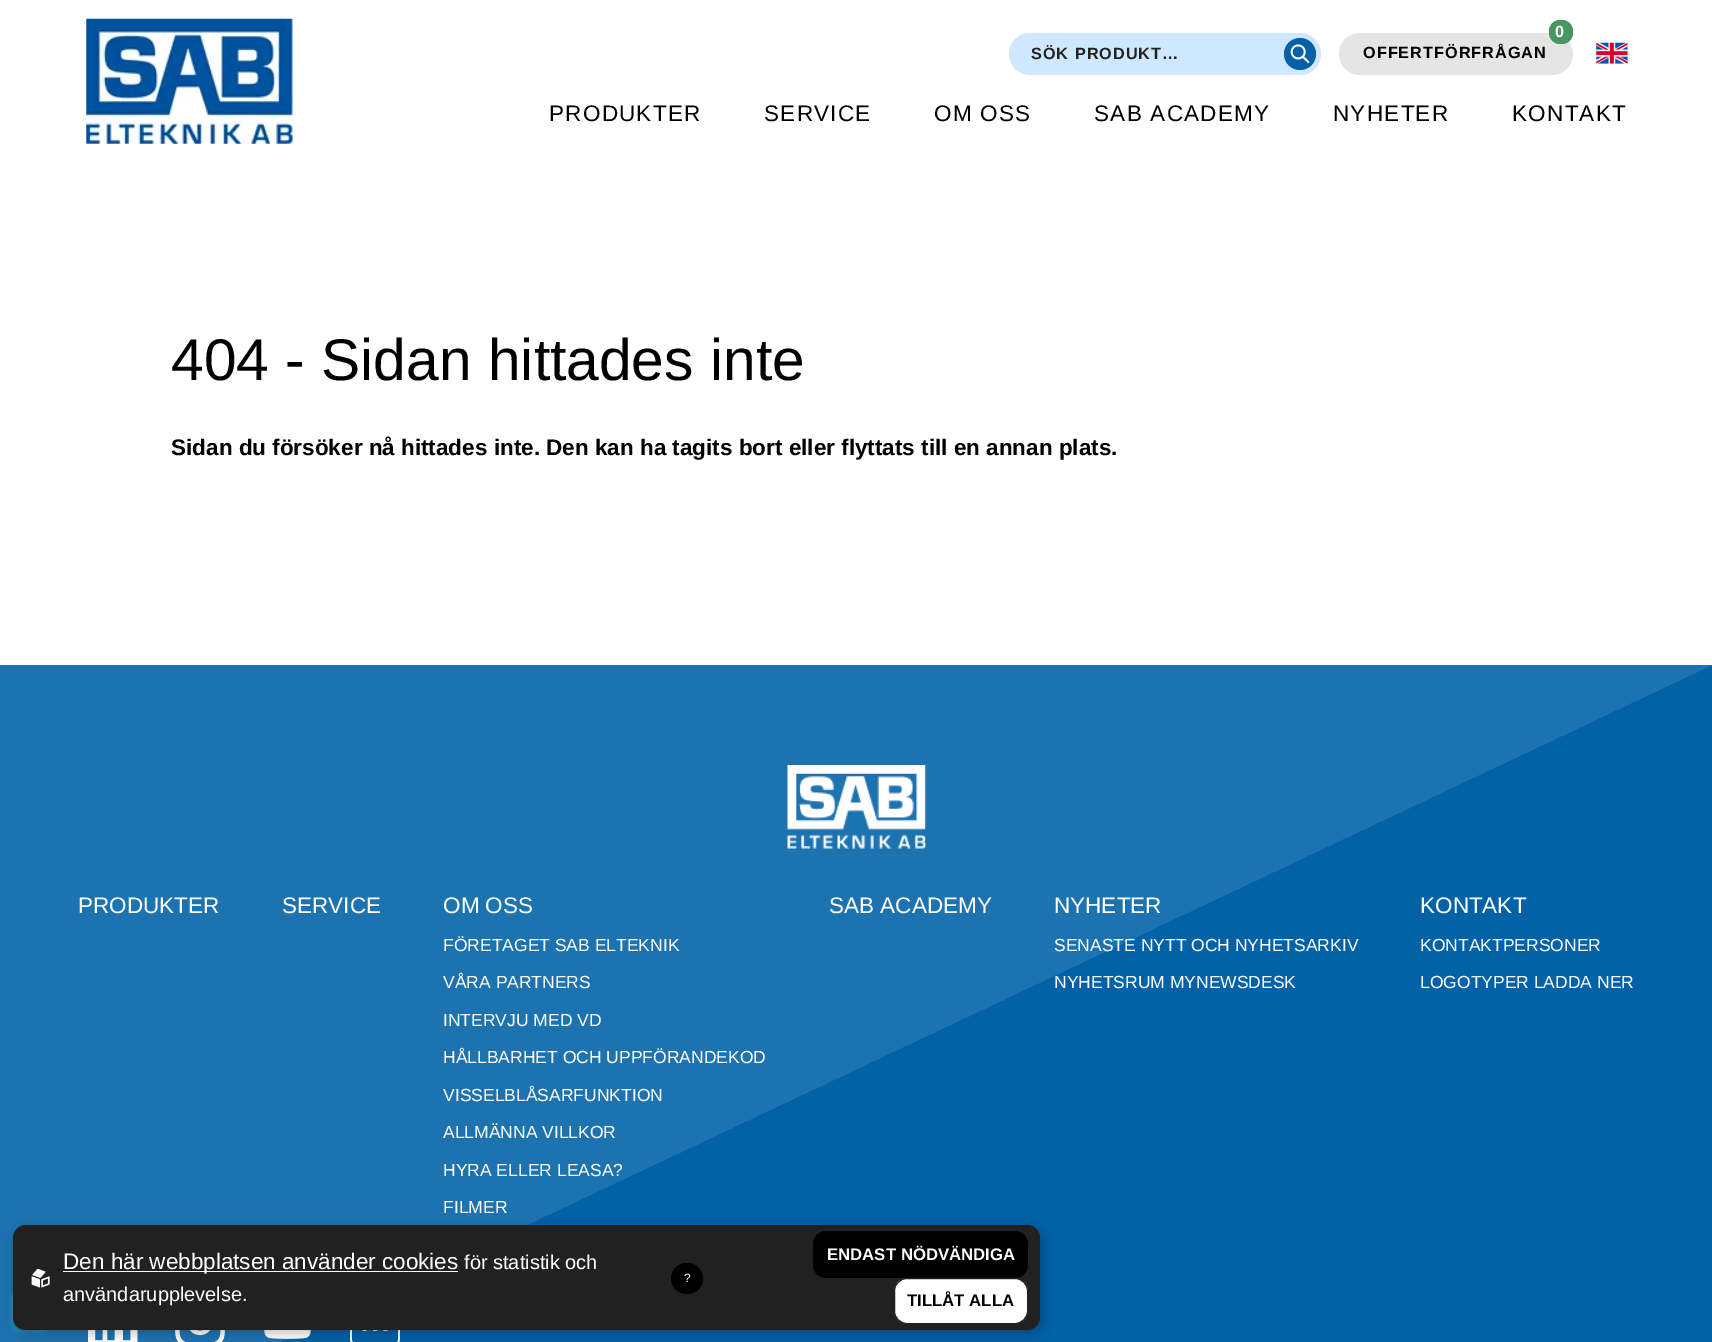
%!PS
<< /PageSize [1712 1342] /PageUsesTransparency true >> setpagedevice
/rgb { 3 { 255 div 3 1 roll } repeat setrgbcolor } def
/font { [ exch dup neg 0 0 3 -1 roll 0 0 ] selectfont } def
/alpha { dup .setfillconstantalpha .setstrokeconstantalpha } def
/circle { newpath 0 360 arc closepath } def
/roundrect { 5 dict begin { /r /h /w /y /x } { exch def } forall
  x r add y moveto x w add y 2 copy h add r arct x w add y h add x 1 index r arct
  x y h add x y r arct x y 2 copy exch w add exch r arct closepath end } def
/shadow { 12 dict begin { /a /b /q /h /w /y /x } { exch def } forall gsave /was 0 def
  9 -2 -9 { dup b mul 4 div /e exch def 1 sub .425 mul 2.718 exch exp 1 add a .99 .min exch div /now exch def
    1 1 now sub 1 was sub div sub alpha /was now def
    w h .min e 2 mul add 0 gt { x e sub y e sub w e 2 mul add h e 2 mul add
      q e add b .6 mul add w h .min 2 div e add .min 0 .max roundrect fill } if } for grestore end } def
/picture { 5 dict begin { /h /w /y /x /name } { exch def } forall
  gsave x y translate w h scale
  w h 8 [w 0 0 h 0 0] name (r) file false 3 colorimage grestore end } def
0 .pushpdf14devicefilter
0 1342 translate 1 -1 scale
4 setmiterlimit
255 255 255 rgb
0 0 1712 1342 rectfill
(img/1.rgb) 86 18 207 126 picture
207 231 255 rgb
1009 33 312 42 21 roundrect fill
2 97 167 rgb
1300 54 16 circle fill
(img/2.rgb) 1290 44 20 20 picture
229 229 229 rgb
1339 33 234 42 21 roundrect fill
71 152 96 rgb
1549 20 24 24 11 roundrect fill
(img/3.rgb) 1596 42 32 22 picture
gsave 0 665 moveto 1712 665 lineto 1712 1342 lineto 0 1342 lineto closepath clip newpath
<< /ShadingType 2 /ColorSpace /DeviceRGB /Coords [544 408 1169 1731] /Extend [true true] /Function << /FunctionType 3 /Domain [0 1] /Functions [<< /FunctionType 2 /Domain [0 1] /C0 [0.114 0.451 0.69] /C1 [0.114 0.451 0.69] /N 1 >> << /FunctionType 2 /Domain [0 1] /C0 [0.008 0.38 0.655] /C1 [0.008 0.38 0.655] /N 1 >>] /Bounds [0.5] /Encode [0 1 0 1] >> >> shfill grestore
(img/4.rgb) 787 765 140 84 picture
(img/5.rgb) 88 1330 50 12 picture
(img/6.rgb) 175 1330 50 12 picture
(img/7.rgb) 264 1330 47 9 picture
(img/8.rgb) 350 1330 50 12 picture
69 190 237 rgb
10 1290 43 43 11 1 0.2 shadow
5 130 137 rgb
13 1293 37 37 9 roundrect fill
0 0 0 rgb
15 1228 1028 105 13 6 0.25 shadow
33 33 33 rgb
13 1225 1027 105 13 roundrect fill
(img/9.rgb) 31 1269 19 19 picture
255 255 255 rgb
63 1271 395 1 rectfill
0 0 0 rgb
671 1263 32 31 15.5 roundrect fill
813 1231 215 47 13 roundrect fill
255 255 255 rgb
894.5 1278.5 133 45 12.5 roundrect gsave fill grestore
33 33 33 rgb
stroke
/LiberationSans-Bold 16.25 font
34 34 34 rgb
1031 59 moveto 1 0 (SÖK PRODUKT…) ashow
255 255 255 rgb
1555 37 moveto 1 0 (0) ashow
0 0 0 rgb
1363 58 moveto 1 0 (OFFERTFÖRFRÅGAN) ashow
/LiberationSans-Regular 22.5 font
549 121 moveto 1.25 0 (PRODUKTER) ashow
764 121 moveto 1.25 0 (SERVICE) ashow
934 121 moveto 1.25 0 (OM OSS) ashow
1094 121 moveto 1.25 0 (SAB ACADEMY) ashow
1333 121 moveto 1.25 0 (NYHETER) ashow
1512 121 moveto 1.25 0 (KONTAKT) ashow
/LiberationSans-Regular 58.75 font
171 380 moveto (404 - Sidan hittades inte) show
/LiberationSans-Bold 22.5 font
171 455 moveto (Sidan du försöker nå hittades inte. Den kan ha tagits bort eller flyttats till en annan plats.) show
/LiberationSans-Regular 22.5 font
255 255 255 rgb
[
  [(PRODUKTER) 78 913]
  [(SERVICE) 282 913]
  [(OM OSS) 443 913]
] { aload pop moveto show } forall
/LiberationSans-Regular 17.5 font
[
  [(FÖRETAGET SAB ELTEKNIK) 443 951]
  [(VÅRA PARTNERS) 443 988]
  [(INTERVJU MED VD) 443 1026]
  [(HÅLLBARHET OCH UPPFÖRANDEKOD) 443 1063]
  [(VISSELBLÅSARFUNKTION) 443 1101]
  [(ALLMÄNNA VILLKOR) 443 1138]
  [(HYRA ELLER LEASA?) 443 1176]
  [(FILMER) 443 1213]
] { aload pop moveto show } forall
/LiberationSans-Regular 22.5 font
829 913 moveto (SAB ACADEMY) show
1054 913 moveto (NYHETER) show
/LiberationSans-Regular 17.5 font
1054 951 moveto (SENASTE NYTT OCH NYHETSARKIV) show
1054 988 moveto (NYHETSRUM MYNEWSDESK) show
/LiberationSans-Regular 22.5 font
1420 913 moveto (KONTAKT) show
/LiberationSans-Regular 17.5 font
1420 951 moveto (KONTAKTPERSONER) show
1420 988 moveto (LOGOTYPER LADDA NER) show
/LiberationSans-Regular 22.5 font
63 1269 moveto (Den här webbplatsen använder cookies) show
/LiberationSans-Regular 20 font
464 1269 moveto (för statistik och) show
63 1301 moveto (användarupplevelse.) show
/LiberationSans-Regular 12 font
684 1282 moveto (?) show
/LiberationSans-Bold 16.75 font
827 1260 moveto (ENDAST NÖDVÄNDIGA) show
0 0 0 rgb
907 1306 moveto (TILLÅT ALLA) show
.poppdf14devicefilter showpage
